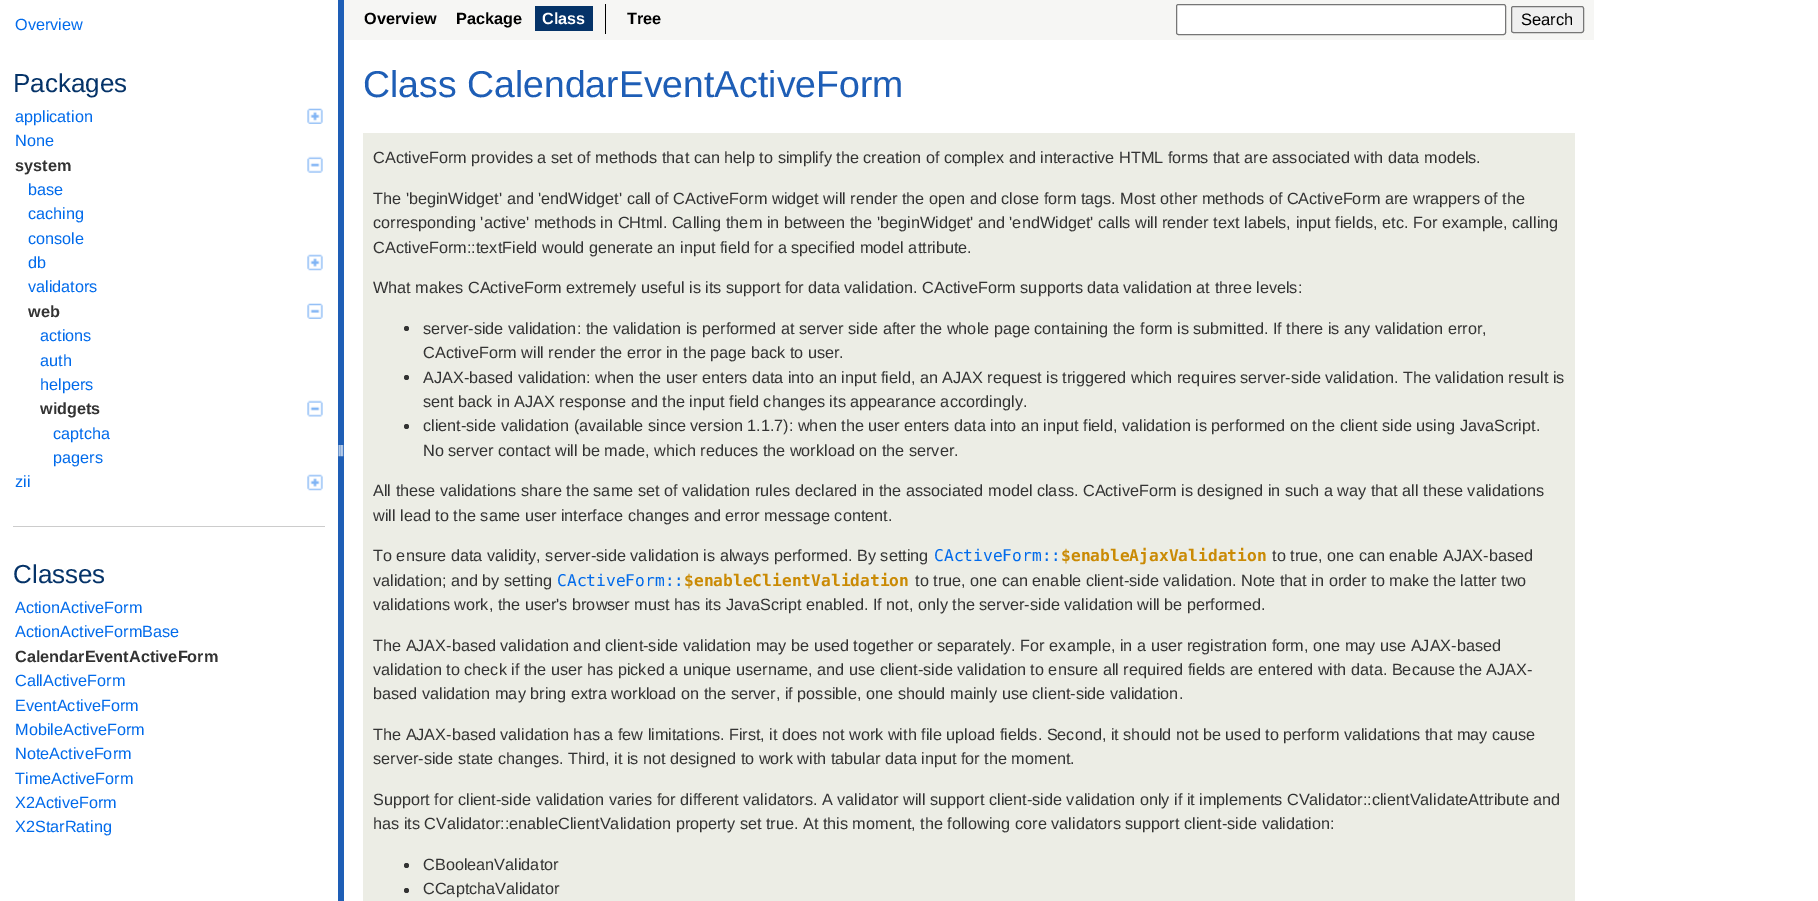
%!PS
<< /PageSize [1818 901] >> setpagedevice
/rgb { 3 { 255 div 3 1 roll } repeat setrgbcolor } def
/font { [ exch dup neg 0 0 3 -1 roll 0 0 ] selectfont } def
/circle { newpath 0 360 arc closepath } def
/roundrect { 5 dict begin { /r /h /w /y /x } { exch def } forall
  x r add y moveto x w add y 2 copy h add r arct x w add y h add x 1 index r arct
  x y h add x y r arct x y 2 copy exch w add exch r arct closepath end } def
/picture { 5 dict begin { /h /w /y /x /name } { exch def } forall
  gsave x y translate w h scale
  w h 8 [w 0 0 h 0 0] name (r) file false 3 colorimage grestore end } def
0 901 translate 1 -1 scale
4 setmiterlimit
255 255 255 rgb
0 0 1818 901 rectfill
(img/1.rgb) 307 108 16 16 picture
(img/2.rgb) 307 156 16 17 picture
(img/3.rgb) 307 254 16 17 picture
(img/4.rgb) 307 303 16 16 picture
(img/5.rgb) 307 400 16 17 picture
(img/3.rgb) 307 474 16 17 picture
204 204 204 rgb
13 526 312 1 rectfill
30 94 182 rgb
338 0 6 901 rectfill
(img/6.rgb) 338 445 6 12 picture
[
  [344 0 1250 40 246 246 244]
  [535 6 58 25 5 51 104]
  [605 4 1 30 0 0 0]
] { aload pop rgb rectfill } forall
255 255 255 rgb
1176.5 4.5 329 30 2 roundrect gsave fill grestore
118 118 118 rgb
stroke
239 239 239 rgb
1511.5 6.5 72 26 2 roundrect gsave fill grestore
118 118 118 rgb
stroke
236 237 229 rgb
363 133 1212 768 rectfill
51 51 51 rgb
406.5 328.5 2.5 circle fill
406.5 377.5 2.5 circle fill
406.5 426.5 2.5 circle fill
406.5 865.5 2.5 circle fill
406.5 890.5 2.5 circle fill
/LiberationSans-Regular 16.25 font
0 106 235 rgb
15 30 moveto (Overview) show
/LiberationSans-Regular 26 font
5 51 104 rgb
13 92 moveto (Packages) show
/LiberationSans-Regular 16.25 font
0 106 235 rgb
15 122 moveto (application) show
15 146 moveto (None) show
/LiberationSans-Bold 16.25 font
51 51 51 rgb
15 171 moveto (system) show
/LiberationSans-Regular 16.25 font
0 106 235 rgb
[
  [(base) 28 195]
  [(caching) 28 219]
  [(console) 28 244]
  [(db) 28 268]
  [(validators) 28 292]
] { aload pop moveto show } forall
/LiberationSans-Bold 16.25 font
51 51 51 rgb
28 317 moveto (web) show
/LiberationSans-Regular 16.25 font
0 106 235 rgb
[
  [(actions) 40 341]
  [(auth) 40 366]
  [(helpers) 40 390]
] { aload pop moveto show } forall
/LiberationSans-Bold 16.25 font
51 51 51 rgb
40 414 moveto (widgets) show
/LiberationSans-Regular 16.25 font
0 106 235 rgb
[
  [(captcha) 53 439]
  [(pagers) 53 463]
  [(zii) 15 487]
] { aload pop moveto show } forall
/LiberationSans-Regular 26 font
5 51 104 rgb
13 583 moveto (Classes) show
/LiberationSans-Regular 16.25 font
0 106 235 rgb
15 613 moveto (ActionActiveForm) show
15 637 moveto (ActionActiveFormBase) show
/LiberationSans-Bold 16.25 font
51 51 51 rgb
15 662 moveto (CalendarEventActiveForm) show
/LiberationSans-Regular 16.25 font
0 106 235 rgb
[
  [(CallActiveForm) 15 686]
  [(EventActiveForm) 15 711]
  [(MobileActiveForm) 15 735]
  [(NoteActiveForm) 15 759]
  [(TimeActiveForm) 15 784]
  [(X2ActiveForm) 15 808]
  [(X2StarRating) 15 832]
] { aload pop moveto show } forall
/LiberationSans-Bold 16.25 font
0 0 0 rgb
364 24 moveto (Overview) show
456 24 moveto (Package) show
255 255 255 rgb
542 24 moveto (Class) show
0 0 0 rgb
627 24 moveto (Tree) show
/LiberationSans-Regular 16.5 font
1521 25 moveto (Search) show
/LiberationSans-Regular 37.4 font
30 94 182 rgb
363 97 moveto (Class CalendarEventActiveForm) show
/LiberationSans-Regular 16.25 font
51 51 51 rgb
[
  [(CActiveForm provides a set of methods that can help to simplify the creation of complex and interactive HTML forms that are associated with data models.) 373 163]
  [(The 'beginWidget' and 'endWidget' call of CActiveForm widget will render the open and close form tags. Most other methods of CActiveForm are wrappers of the) 373 204]
  [(corresponding 'active' methods in CHtml. Calling them in between the 'beginWidget' and 'endWidget' calls will render text labels, input fields, etc. For example, calling) 373 228]
  [(CActiveForm::textField would generate an input field for a specified model attribute.) 373 253]
  [(What makes CActiveForm extremely useful is its support for data validation. CActiveForm supports data validation at three levels:) 373 293]
  [(server-side validation: the validation is performed at server side after the whole page containing the form is submitted. If there is any validation error,) 423 334]
  [(CActiveForm will render the error in the page back to user.) 423 358]
  [(AJAX-based validation: when the user enters data into an input field, an AJAX request is triggered which requires server-side validation. The validation result is) 423 383]
  [(sent back in AJAX response and the input field changes its appearance accordingly.) 423 407]
  [(client-side validation \(available since version 1.1.7\): when the user enters data into an input field, validation is performed on the client side using JavaScript.) 423 431]
  [(No server contact will be made, which reduces the workload on the server.) 423 456]
  [(All these validations share the same set of validation rules declared in the associated model class. CActiveForm is designed in such a way that all these validations) 373 496]
  [(will lead to the same user interface changes and error message content.) 373 521]
  [(To ensure data validity, server-side validation is always performed. By setting) 373 561]
] { aload pop moveto show } forall
/DejaVuSansMono-Regular 16.25 font
0 106 235 rgb
934 561 moveto (CActiveForm::) show
/DejaVuSansMono-Bold 16.25 font
202 138 4 rgb
1061 561 moveto ($enableAjaxValidation) show
/LiberationSans-Regular 16.25 font
51 51 51 rgb
1272 561 moveto (to true, one can enable AJAX-based) show
373 586 moveto (validation; and by setting) show
/DejaVuSansMono-Regular 16.25 font
0 106 235 rgb
557 586 moveto (CActiveForm::) show
/DejaVuSansMono-Bold 16.25 font
202 138 4 rgb
684 586 moveto ($enableClientValidation) show
/LiberationSans-Regular 16.25 font
51 51 51 rgb
[
  [(to true, one can enable client-side validation. Note that in order to make the latter two) 915 586]
  [(validations work, the user's browser must has its JavaScript enabled. If not, only the server-side validation will be performed.) 373 610]
  [(The AJAX-based validation and client-side validation may be used together or separately. For example, in a user registration form, one may use AJAX-based) 373 651]
  [(validation to check if the user has picked a unique username, and use client-side validation to ensure all required fields are entered with data. Because the AJAX-) 373 675]
  [(based validation may bring extra workload on the server, if possible, one should mainly use client-side validation.) 373 699]
  [(The AJAX-based validation has a few limitations. First, it does not work with file upload fields. Second, it should not be used to perform validations that may cause) 373 740]
  [(server-side state changes. Third, it is not designed to work with tabular data input for the moment.) 373 764]
  [(Support for client-side validation varies for different validators. A validator will support client-side validation only if it implements CValidator::clientValidateAttribute and) 373 805]
  [(has its CValidator::enableClientValidation property set true. At this moment, the following core validators support client-side validation:) 373 829]
  [(CBooleanValidator) 423 870]
  [(CCaptchaValidator) 423 894]
] { aload pop moveto show } forall
showpage
